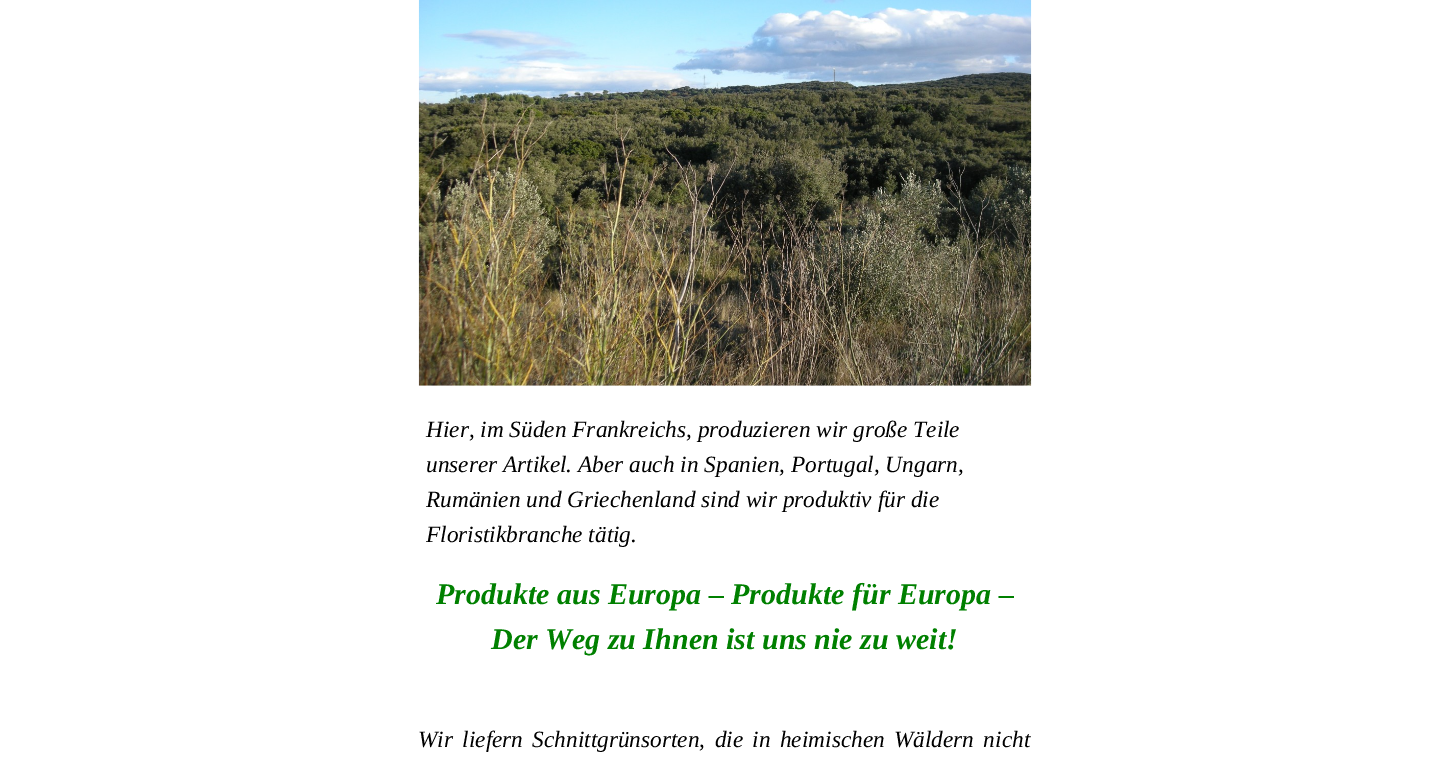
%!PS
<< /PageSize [1436 774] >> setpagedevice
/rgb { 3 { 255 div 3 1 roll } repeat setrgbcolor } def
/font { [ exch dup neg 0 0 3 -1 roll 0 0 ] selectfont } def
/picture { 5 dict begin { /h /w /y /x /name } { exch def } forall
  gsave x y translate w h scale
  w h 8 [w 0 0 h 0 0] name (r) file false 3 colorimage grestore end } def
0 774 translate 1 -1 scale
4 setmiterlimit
255 255 255 rgb
0 0 1436 774 rectfill
(img/1.rgb) 418 0 614 386 picture
/LiberationSerif-Italic 23.3 font
0 0 0 rgb
[
  [(Hier, im Süden Frankreichs, produzieren wir große Teile) 426 437]
  [(unserer Artikel. Aber auch in Spanien, Portugal, Ungarn,) 426 472]
  [(Rumänien und Griechenland sind wir produktiv für die) 426 507]
  [(Floristikbranche tätig.) 426 542]
] { aload pop moveto show } forall
/LiberationSerif-BoldItalic 30 font
0 128 0 rgb
436 604 moveto (Produkte aus Europa – Produkte für Europa –) show
491 649 moveto (Der Weg zu Ihnen ist uns nie zu weit!) show
/LiberationSerif-Italic 23.3 font
0 0 0 rgb
418 747 moveto 3.5 0 32 (Wir liefern Schnittgrünsorten, die in heimischen Wäldern nicht) widthshow
showpage
